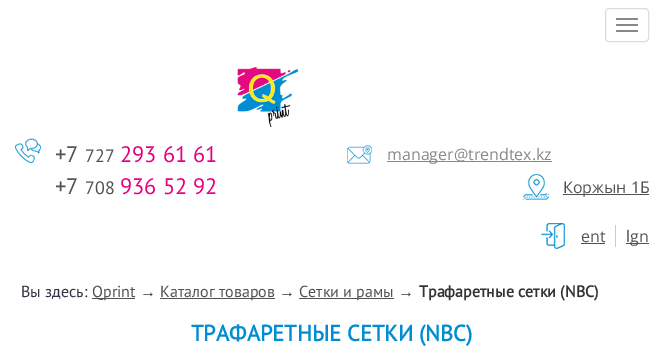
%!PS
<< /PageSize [664 349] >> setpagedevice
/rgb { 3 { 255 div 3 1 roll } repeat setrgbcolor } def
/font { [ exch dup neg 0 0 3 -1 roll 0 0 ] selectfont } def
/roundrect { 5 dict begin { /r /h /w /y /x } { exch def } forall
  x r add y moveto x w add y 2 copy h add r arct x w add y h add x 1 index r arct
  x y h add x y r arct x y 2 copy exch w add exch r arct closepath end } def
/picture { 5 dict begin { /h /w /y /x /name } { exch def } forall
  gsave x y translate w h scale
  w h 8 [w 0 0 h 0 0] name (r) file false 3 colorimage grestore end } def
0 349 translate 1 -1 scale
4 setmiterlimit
255 255 255 rgb
0 0 664 349 rectfill
221 221 221 rgb
605.5 8.5 43 33 3.5 roundrect stroke
136 136 136 rgb
616 18 22 2 1 roundrect fill
616 24 22 2 1 roundrect fill
616 30 22 2 1 roundrect fill
(img/1.rgb) 237 67 62 60 picture
(img/2.rgb) 15 138 26 25 picture
(img/3.rgb) 347 145 25 19 picture
387 161 165 1 rectfill
(img/4.rgb) 523 174 26 26 picture
82 82 82 rgb
563 194 86 1 rectfill
(img/5.rgb) 541 223 24 26 picture
[
  [581 243 24 1 82 82 82]
  [615 225 1 22 204 204 204]
  [626 243 23 1 82 82 82]
  [92 298 43 1 82 82 82]
  [160 298 115 1 82 82 82]
  [299 298 95 1 82 82 82]
] { aload pop rgb rectfill } forall
/PTSans-Regular 22.4 font
55 162 moveto (+7) show
/PTSans-Regular 18 font
85 162 moveto (727) show
/PTSans-Regular 22.4 font
233 0 127 rgb
120 162 moveto (293 61 61) show
82 82 82 rgb
55 194 moveto (+7) show
/PTSans-Regular 18 font
85 194 moveto (708) show
/PTSans-Regular 22.4 font
233 0 127 rgb
120 194 moveto (936 52 92) show
/OpenSans-Regular 16 font
136 136 136 rgb
387 160 moveto (manager@trendtex.kz) show
82 82 82 rgb
[
  [(Коржын 1Б) 563 193]
  [(ent) 581 242]
  [(lgn) 626 242]
] { aload pop moveto show } forall
/PTSans-Regular 16 font
51 51 68 rgb
21 297 moveto (Вы здесь:) show
82 82 82 rgb
92 297 moveto (Qprint) show
/LiberationSans-Regular 16 font
51 51 68 rgb
140 297 moveto (→) show
/PTSans-Regular 16 font
82 82 82 rgb
160 297 moveto (Каталог товаров) show
/LiberationSans-Regular 16 font
51 51 68 rgb
279 297 moveto (→) show
/PTSans-Regular 16 font
82 82 82 rgb
299 297 moveto (Сетки и рамы) show
/LiberationSans-Regular 16 font
51 51 68 rgb
398 297 moveto (→) show
/PTSans-Bold 16 font
51 51 51 rgb
419 297 moveto (Трафаретные сетки \(NBC\)) show
/PTSans-Bold 22.4 font
0 141 210 rgb
191 341 moveto (ТРАФАРЕТНЫЕ СЕТКИ \(NBC\)) show
showpage
